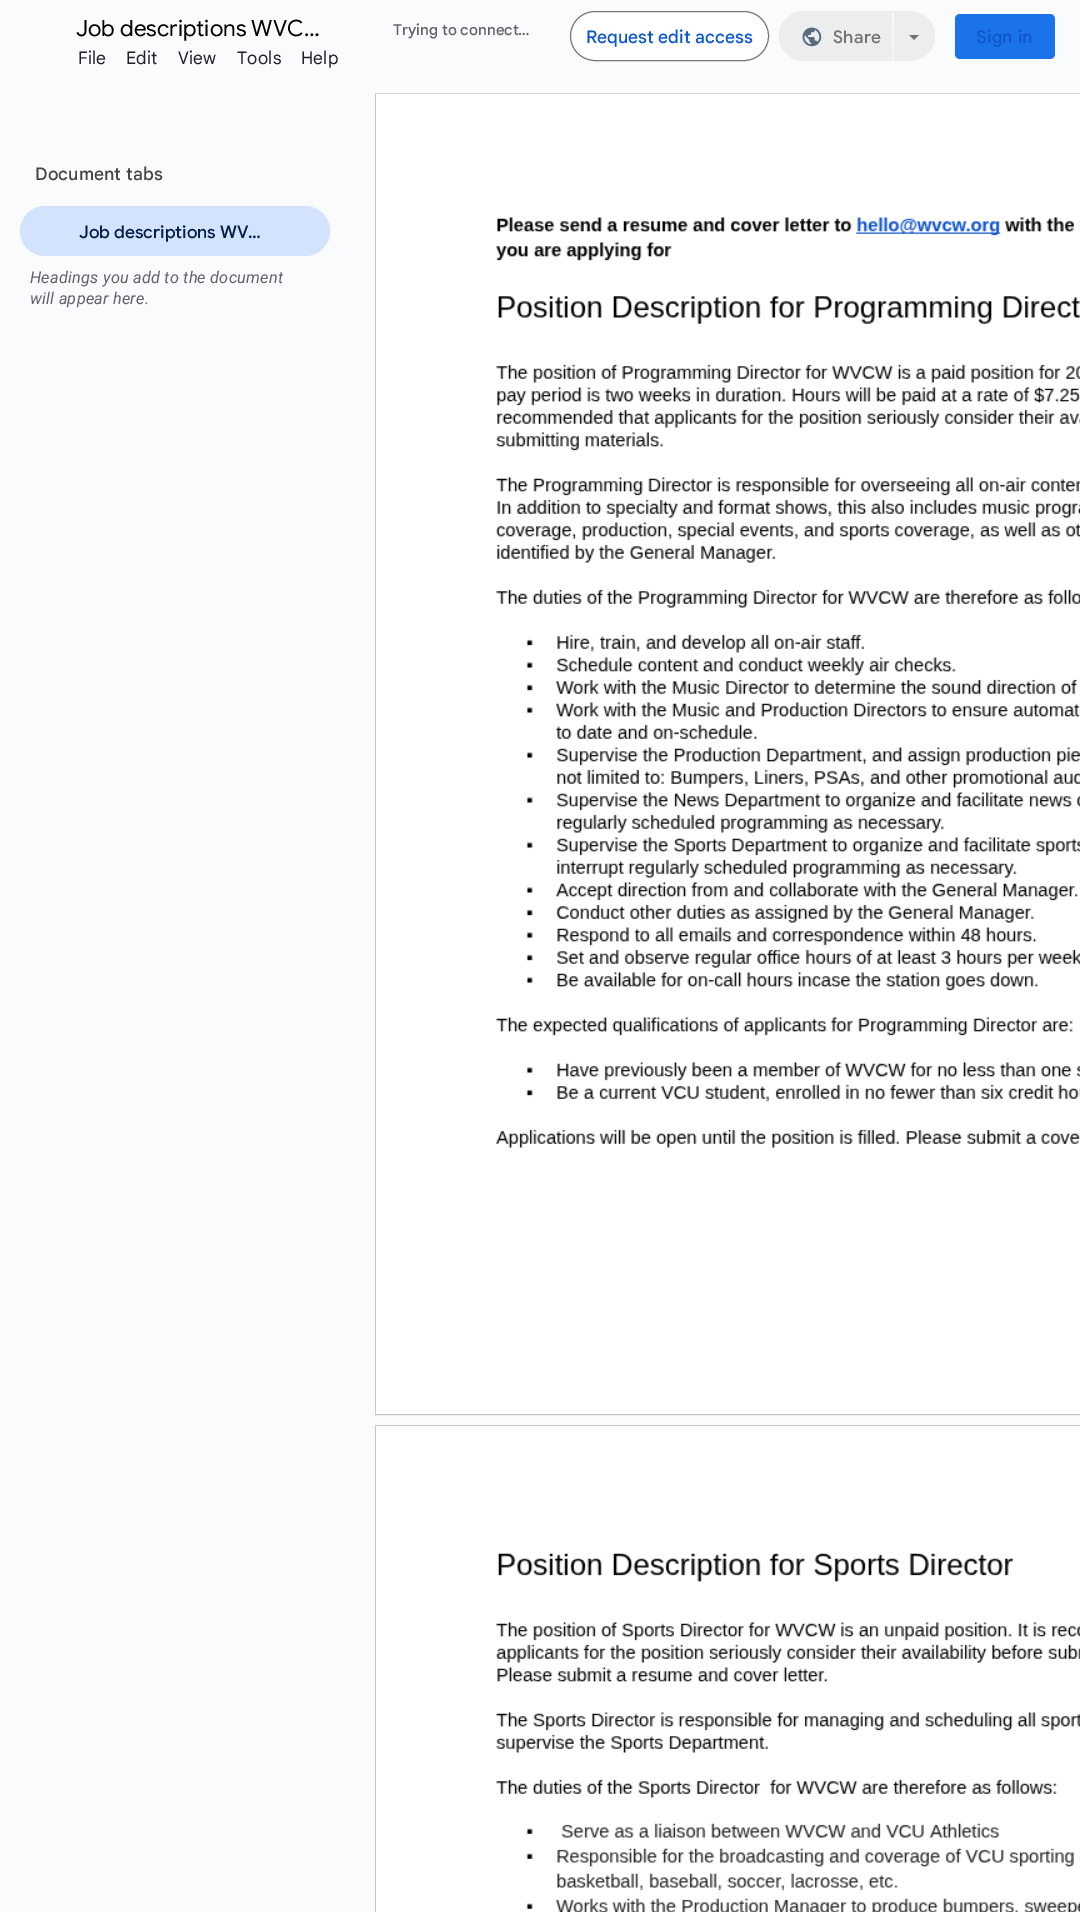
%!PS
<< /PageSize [1080 1912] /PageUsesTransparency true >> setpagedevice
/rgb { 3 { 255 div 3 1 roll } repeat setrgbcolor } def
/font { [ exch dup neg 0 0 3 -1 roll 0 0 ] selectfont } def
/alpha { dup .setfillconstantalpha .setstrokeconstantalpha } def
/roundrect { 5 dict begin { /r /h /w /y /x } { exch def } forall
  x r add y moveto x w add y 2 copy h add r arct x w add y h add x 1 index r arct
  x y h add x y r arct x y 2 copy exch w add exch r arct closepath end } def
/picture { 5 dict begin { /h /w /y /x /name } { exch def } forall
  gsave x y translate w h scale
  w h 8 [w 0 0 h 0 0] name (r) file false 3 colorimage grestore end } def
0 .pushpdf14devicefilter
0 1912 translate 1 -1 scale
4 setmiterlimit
249 251 253 rgb
0 0 1080 1912 rectfill
255 255 255 rgb
570.5 11.5 198 49 24.5 roundrect gsave fill grestore
116 119 117 rgb
stroke
236 237 238 rgb
804 11 moveto 894 11 lineto 894 61 lineto 804 61 lineto 790 61 779 50 779 36 curveto 779 22 790 11 804 11 curveto closepath fill
(img/1.rgb) 802 27 20 20 picture
0.62 alpha
228 228 228 rgb
893 11 moveto 910 11 lineto 924 11 935 22 935 36 curveto 935 50 924 61 910 61 curveto 893 61 lineto closepath fill
1 alpha
248 248 249 rgb
893 61 moveto 892 11 lineto 894 13 lineto 894 60 lineto closepath fill
114 115 115 rgb
909 35 moveto 919 35 lineto 914 40 lineto closepath fill
26 115 232 rgb
955 14 100 45 5 roundrect fill
211 227 253 rgb
20 206 310 50 25 roundrect fill
199 199 199 rgb
375.5 93.5 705 1321 rectstroke
(img/2.rgb) 376 93 704 1321 picture
375.5 1425.5 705 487 rectstroke
(img/3.rgb) 376 1426 704 486 picture
/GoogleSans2-Regular 22.5 font
0 0 0 rgb
76 36 moveto (Job descriptions WVC…) show
/GoogleSans-Medium 15 font
95 99 104 rgb
393 35 moveto (Trying to connect…) show
/GoogleSans-Medium 17.5 font
11 87 208 rgb
586 43 moveto (Request edit access) show
/GoogleSans2-Medium 17.5 font
114 115 115 rgb
833 43 moveto 0.25 0 (Share) ashow
/GoogleSans-Medium 17.5 font
17 85 204 rgb
976 43 moveto 0.25 0 (Sign in) ashow
/GoogleSans-Regular 17.5 font
32 33 36 rgb
78 64 moveto 0.25 0 (File) ashow
126 64 moveto 0.25 0 (Edit) ashow
178 64 moveto 0.25 0 (View) ashow
237 64 moveto 0.25 0 (Tools) ashow
301 64 moveto 0.25 0 (Help) ashow
/GoogleSans-Medium 17.5 font
68 71 70 rgb
35 180 moveto 0.1 0 (Document tabs) ashow
/GoogleSans2-Medium 17.5 font
4 30 73 rgb
79 238 moveto (Job descriptions WV…) show
/Roboto-Italic 16.25 font
95 99 104 rgb
30 283 moveto 0.25 0 (Headings you add to the document) ashow
30 304 moveto 0.25 0 (will appear here.) ashow
.poppdf14devicefilter showpage
